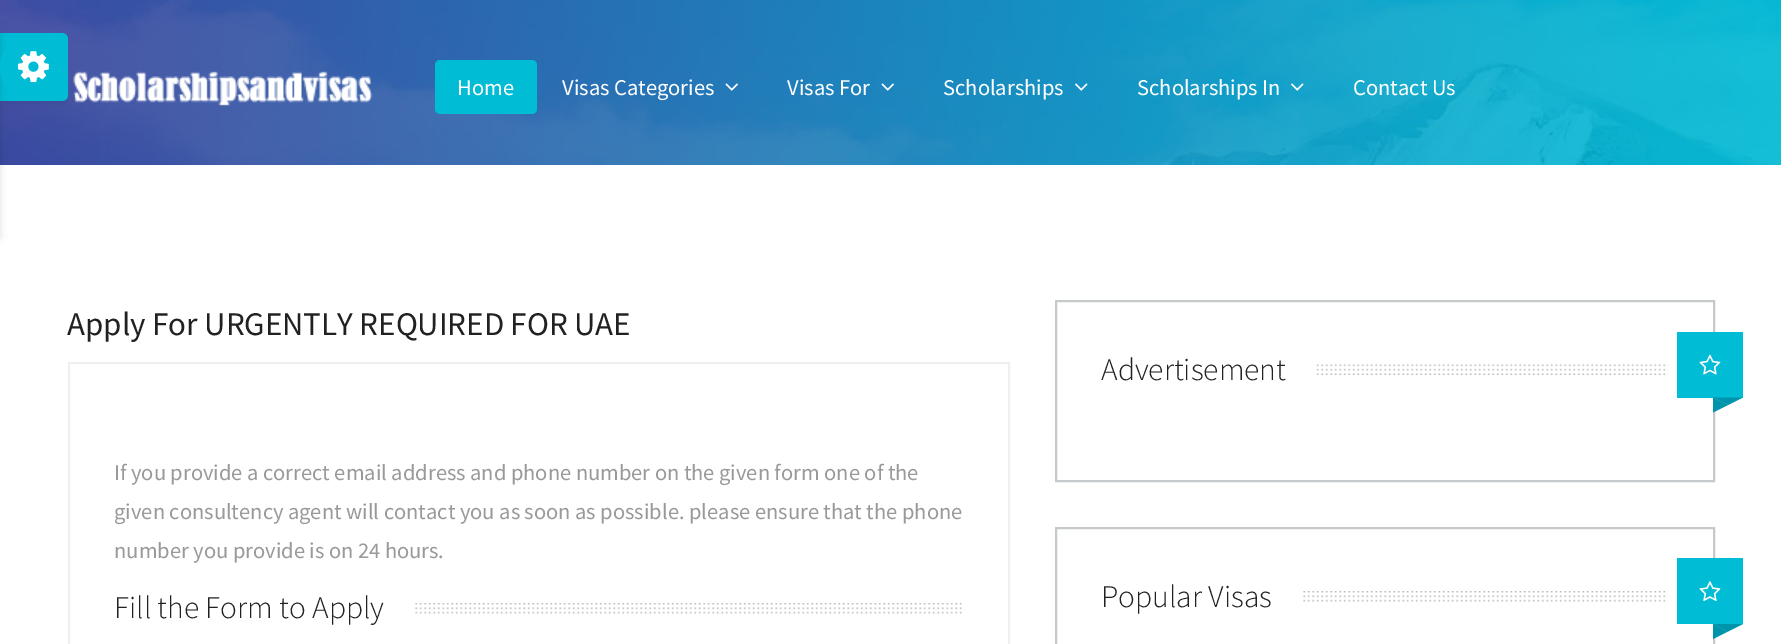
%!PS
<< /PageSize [1781 644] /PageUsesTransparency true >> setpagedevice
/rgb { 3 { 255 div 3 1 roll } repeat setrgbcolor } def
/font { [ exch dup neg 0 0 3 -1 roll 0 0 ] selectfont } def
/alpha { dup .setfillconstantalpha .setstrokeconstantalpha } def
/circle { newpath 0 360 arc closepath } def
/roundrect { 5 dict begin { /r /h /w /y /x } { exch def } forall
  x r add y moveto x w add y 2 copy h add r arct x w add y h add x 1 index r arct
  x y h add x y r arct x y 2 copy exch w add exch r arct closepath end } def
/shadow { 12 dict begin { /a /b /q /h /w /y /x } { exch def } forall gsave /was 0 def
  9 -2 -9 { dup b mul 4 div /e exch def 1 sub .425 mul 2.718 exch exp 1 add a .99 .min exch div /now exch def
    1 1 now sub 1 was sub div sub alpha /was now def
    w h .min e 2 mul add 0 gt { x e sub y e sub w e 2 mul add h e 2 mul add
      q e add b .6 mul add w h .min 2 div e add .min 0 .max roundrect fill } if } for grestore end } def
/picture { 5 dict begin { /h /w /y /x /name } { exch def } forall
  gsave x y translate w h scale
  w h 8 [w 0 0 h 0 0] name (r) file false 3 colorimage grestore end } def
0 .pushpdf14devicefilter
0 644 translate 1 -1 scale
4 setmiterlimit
255 255 255 rgb
0 0 1781 644 rectfill
(img/2.rgb) 0 0 1781 165 picture
(img/3.rgb) 73 71 300 35 picture
gsave
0 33 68 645 rectclip
0 0 0 rgb
0 33 68 68 6 4 0.14 shadow
grestore
0 188 212 rgb
0 33 moveto 62 33 lineto 65.5 33 68 35.5 68 39 curveto 68 95 lineto 68 98.5 65.5 101 62 101 curveto 0 101 lineto closepath fill
gsave
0 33 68 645 rectclip
0 0 0 rgb
-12 33 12 204 0 4 0.14 shadow
grestore
34 67 34 circle fill
(img/1.rgb) 18 51 31 32 picture
435 60 102 54 5 roundrect fill
(img/4.rgb) 725 83 13 8 picture
(img/5.rgb) 881 83 13 8 picture
(img/6.rgb) 1075 83 13 8 picture
(img/7.rgb) 1291 83 13 8 picture
240 239 239 rgb
2 setlinewidth
69 363 940 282 rectstroke
(img/8.rgb) 415 603 547 11 picture
198 201 204 rgb
1056 301 658 180 rectstroke
(img/9.rgb) 1316 364 352 11 picture
0 188 212 rgb
1677 332 66 66 rectfill
(img/10.rgb) 1699 354 22 21 picture
0 148 172 rgb
1713 397.5 moveto 1743 397.5 lineto 1728 405 lineto closepath fill
1713 412.5 moveto 1713 397.5 lineto 1728 405 lineto closepath fill
198 201 204 rgb
1056 528 658 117 rectstroke
(img/11.rgb) 1303 591 365 11 picture
0 188 212 rgb
1677 558 66 66 rectfill
(img/12.rgb) 1699 581 22 20 picture
0 148 172 rgb
1713 624 moveto 1743 624 lineto 1728 631.5 lineto closepath fill
1713 639 moveto 1713 624 lineto 1728 631.5 lineto closepath fill
/SourceSansPro-Regular 22.5 font
255 255 255 rgb
[
  [(Home) 457 95]
  [(Visas Categories) 562 95]
  [(Visas For) 787 95]
  [(Scholarships) 943 95]
  [(Scholarships In) 1137 95]
  [(Contact Us) 1353 95]
] { aload pop moveto show } forall
/SourceSansPro-Regular 33 font
33 33 33 rgb
67 335 moveto (Apply For URGENTLY REQUIRED FOR UAE) show
/SourceSansPro-Regular 22.5 font
153 153 153 rgb
[
  [(If you provide a correct email address and phone number on the given form one of the) 114 480]
  [(given consultency agent will contact you as soon as possible. please ensure that the phone) 114 519]
  [(number you provide is on 24 hours.) 114 558]
] { aload pop moveto show } forall
/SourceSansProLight-Light 31.5 font
33 33 33 rgb
[
  [(Fill the Form to Apply) 114 618]
  [(Advertisement) 1101 380]
  [(Popular Visas) 1101 607]
] { aload pop moveto show } forall
.poppdf14devicefilter showpage
